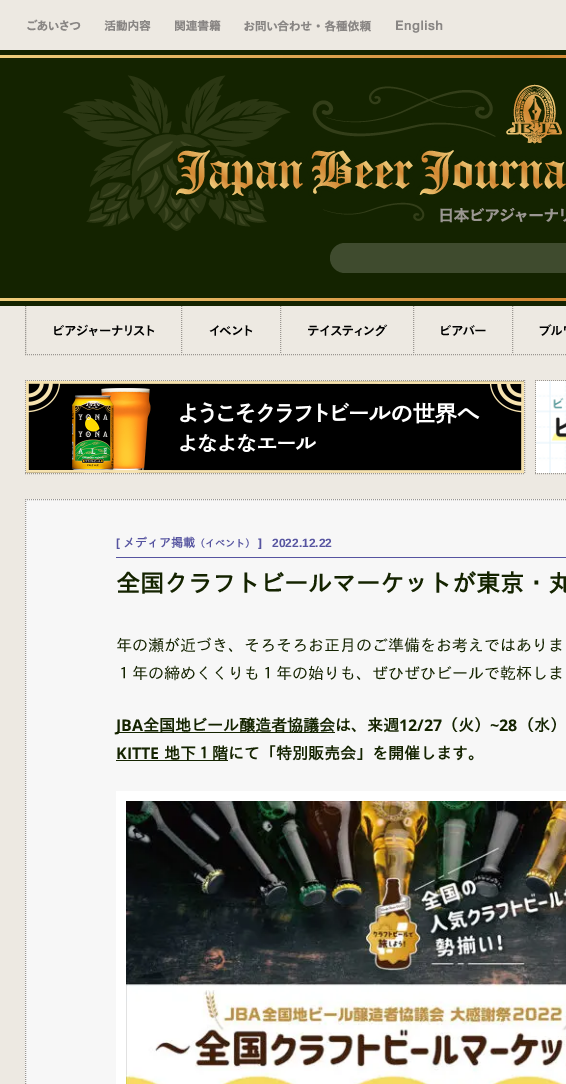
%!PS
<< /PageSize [566 1084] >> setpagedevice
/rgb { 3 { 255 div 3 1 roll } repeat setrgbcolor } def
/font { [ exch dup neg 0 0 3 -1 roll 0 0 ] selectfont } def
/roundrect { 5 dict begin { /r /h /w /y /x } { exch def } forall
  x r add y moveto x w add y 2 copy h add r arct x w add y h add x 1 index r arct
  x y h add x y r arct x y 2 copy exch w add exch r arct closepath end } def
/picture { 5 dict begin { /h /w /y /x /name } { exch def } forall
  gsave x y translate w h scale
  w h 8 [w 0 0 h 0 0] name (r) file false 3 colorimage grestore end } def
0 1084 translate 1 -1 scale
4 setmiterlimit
237 233 226 rgb
0 0 566 1084 rectfill
(img/1.rgb) 27 19 54 12 picture
(img/2.rgb) 104 20 47 11 picture
(img/3.rgb) 175 20 46 11 picture
(img/4.rgb) 244 20 127 12 picture
(img/5.rgb) 396 20 47 13 picture
20 35 0 rgb
0 50 566 256 rectfill
gsave 0 55 moveto 566 55 lineto 566 58 lineto 0 58 lineto closepath clip newpath
<< /ShadingType 2 /ColorSpace /DeviceRGB /Coords [0 57 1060 56] /Extend [true true] /Function << /FunctionType 3 /Domain [0 1] /Functions [<< /FunctionType 2 /Domain [0 1] /C0 [0.937 0.808 0.49] /C1 [0.824 0.529 0.196] /N 1 >> << /FunctionType 2 /Domain [0 1] /C0 [0.824 0.529 0.196] /C1 [0.937 0.808 0.49] /N 1 >>] /Bounds [0.5] /Encode [0 1 0 1] >> >> shfill grestore
(img/6.rgb) 63 75 433 156 picture
(img/7.rgb) 171 84 395 139 picture
63 75 46 rgb
330 243 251 30 15 roundrect fill
gsave 0 298 moveto 566 298 lineto 566 301 lineto 0 301 lineto closepath clip newpath
<< /ShadingType 2 /ColorSpace /DeviceRGB /Coords [0 300 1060 299] /Extend [true true] /Function << /FunctionType 3 /Domain [0 1] /Functions [<< /FunctionType 2 /Domain [0 1] /C0 [0.937 0.808 0.49] /C1 [0.824 0.529 0.196] /N 1 >> << /FunctionType 2 /Domain [0 1] /C0 [0.824 0.529 0.196] /C1 [0.937 0.808 0.49] /N 1 >>] /Bounds [0.5] /Encode [0 1 0 1] >> >> shfill grestore
155 151 146 rgb
[1 1] 0 setdash
25 354.5 moveto 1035 354.5 lineto stroke
25.5 306 moveto 25.5 355 lineto stroke
181.5 306 moveto 181.5 354 lineto stroke
(img/8.rgb) 54 324 101 12 picture
280.5 306 moveto 280.5 354 lineto stroke
(img/9.rgb) 209 325 44 11 picture
413.5 306 moveto 413.5 354 lineto stroke
(img/10.rgb) 308 324 80 13 picture
512.5 306 moveto 512.5 354 lineto stroke
(img/11.rgb) 441 325 45 11 picture
(img/12.rgb) 539 324 27 12 picture
25 380.5 moveto 525 380.5 lineto stroke
25.5 380 moveto 25.5 474 lineto stroke
(img/13.rgb) 26 381 498 92 picture
524.5 380 moveto 524.5 474 lineto stroke
25 473.5 moveto 525 473.5 lineto stroke
535 380.5 moveto 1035 380.5 lineto stroke
535.5 380 moveto 535.5 474 lineto stroke
(img/14.rgb) 536 381 30 92 picture
535 473.5 moveto 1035 473.5 lineto stroke
247 247 247 rgb
25 499 541 585 rectfill
155 151 146 rgb
25 499.5 moveto 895 499.5 lineto stroke
25.5 499 moveto 25.5 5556 lineto stroke
[
  [116 557 450 1 86 84 160]
  [116 732 219 1 20 35 0]
  [116 760 112 1 20 35 0]
] { aload pop rgb rectfill } forall
255 255 255 rgb
10 setlinewidth
[] 0 setdash
121 796 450 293 rectstroke
(img/15.rgb) 126 801 440 283 picture
/OpenSans-Bold 12 font
86 84 160 rgb
116 547 moveto ([) show
/IPAGothic-Bold 12 font
123 547 moveto (メディア掲載) show
/IPAGothic-Bold 10 font
195 547 moveto (（イベント）) show
/OpenSans-Bold 12 font
258 547 moveto (]) show
/LiberationSans-Bold 12 font
272 547 moveto (2022.12.22) show
/IPAGothic-Bold 24 font
20 35 0 rgb
116 592 moveto (全国クラフトビールマーケットが東京・丸) show
/IPAGothic-Regular 16 font
116 651 moveto (年の瀬が近づき、そろそろお正月のご準備をお考えではありま) show
116 679 moveto (１年の締めくくりも１年の始りも、ぜひぜひビールで乾杯しま) show
/OpenSans-Bold 16 font
116 731 moveto (JBA) show
/IPAGothic-Bold 16 font
143 731 moveto (全国地ビール醸造者協議会は、来週) show
/OpenSans-Bold 16 font
399 731 moveto (12/27) show
/IPAGothic-Bold 16 font
442 731 moveto (（火）) show
/OpenSans-Bold 16 font
490 731 moveto (~28) show
/IPAGothic-Bold 16 font
518 731 moveto (（水）) show
/OpenSans-Bold 16 font
116 759 moveto (KITTE) show
/IPAGothic-Bold 16 font
164 759 moveto (地下１階にて「特別販売会」を開催します。) show
showpage
